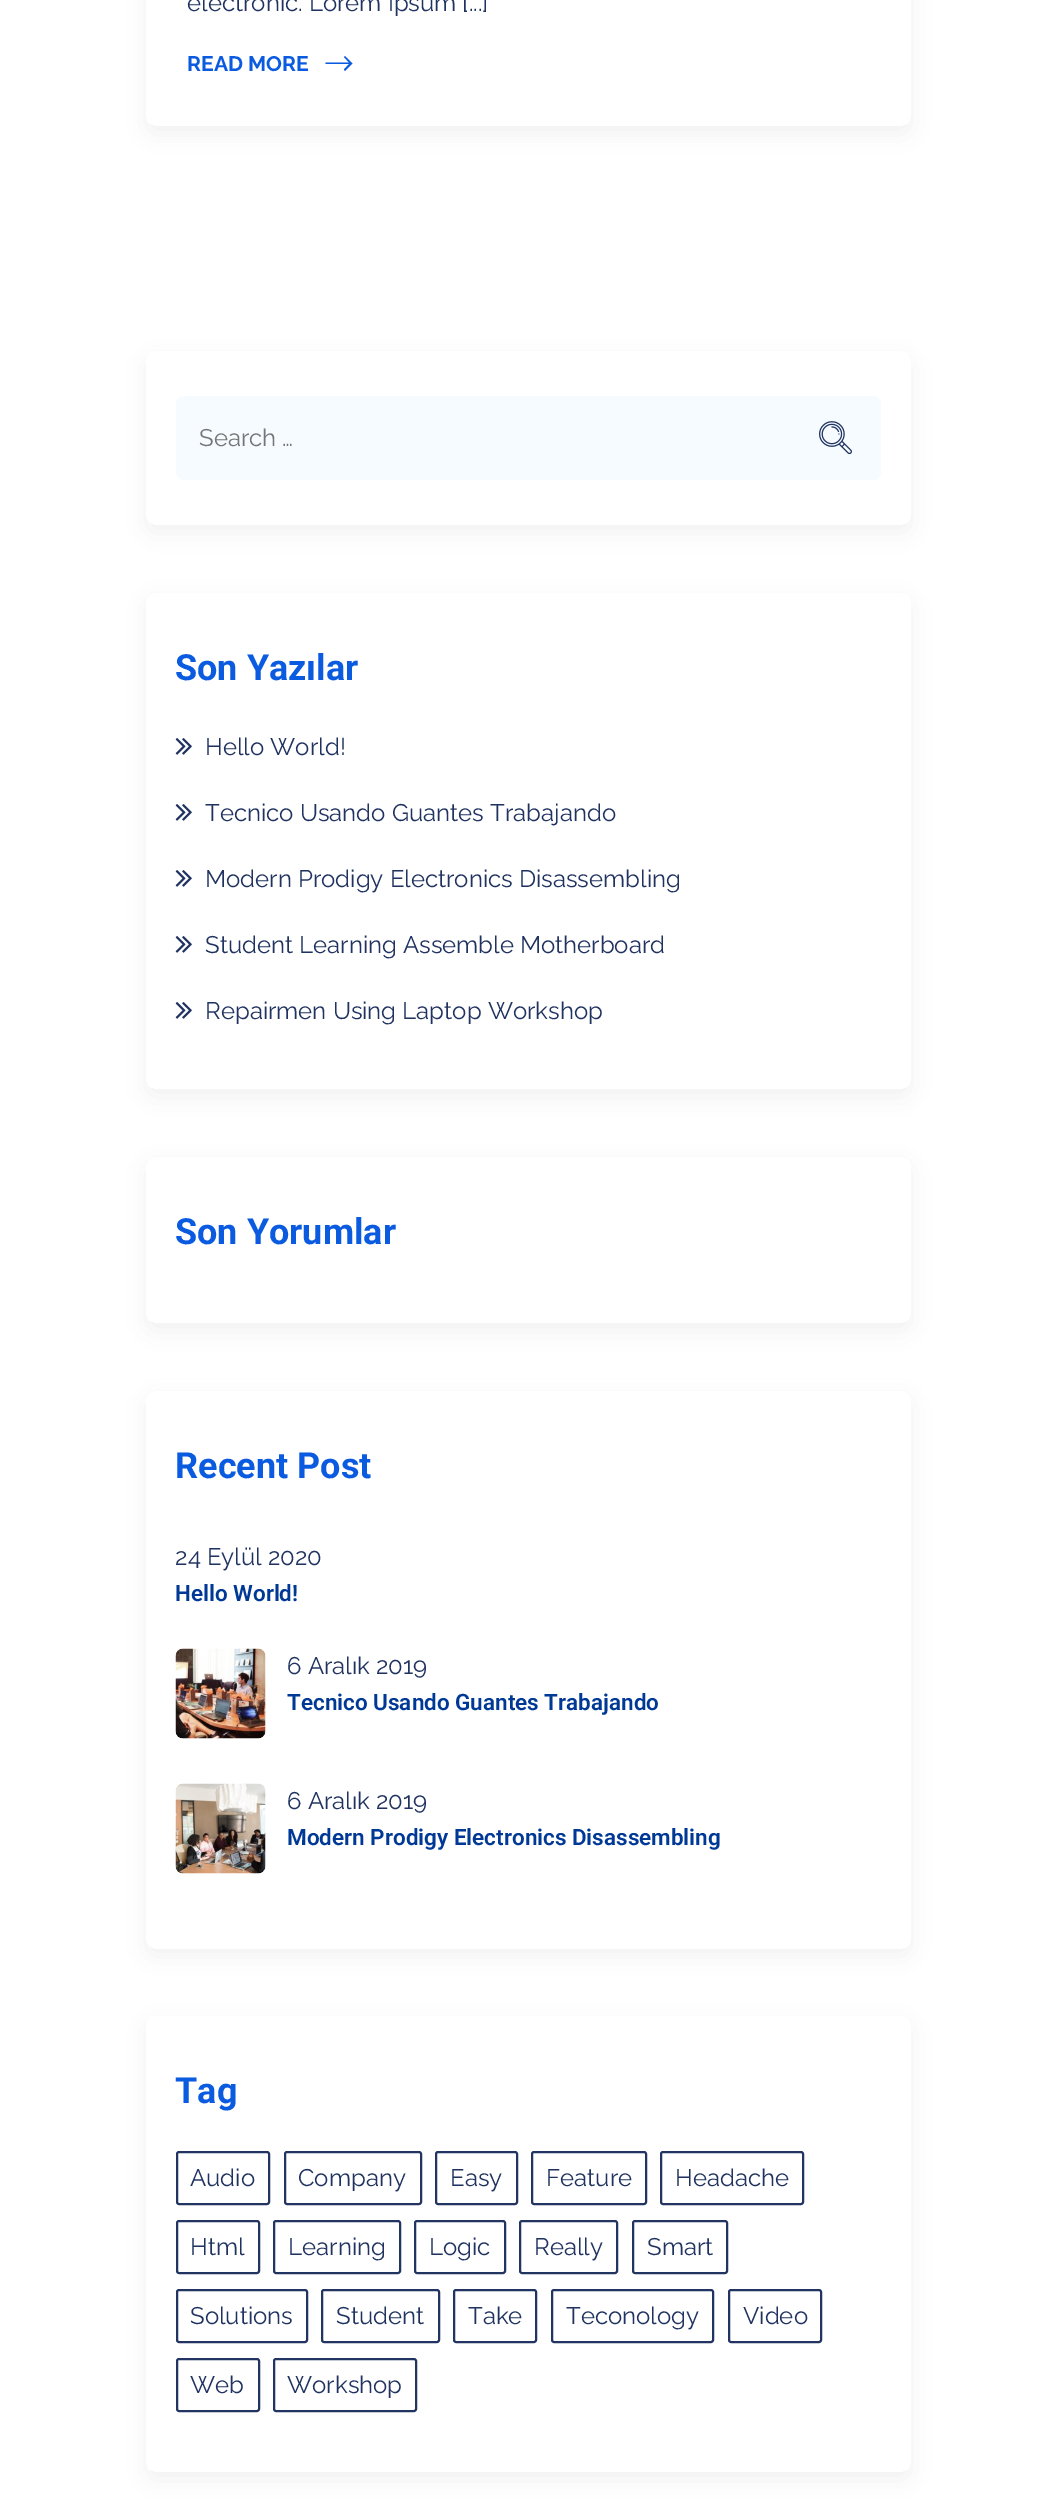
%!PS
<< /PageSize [1054 2498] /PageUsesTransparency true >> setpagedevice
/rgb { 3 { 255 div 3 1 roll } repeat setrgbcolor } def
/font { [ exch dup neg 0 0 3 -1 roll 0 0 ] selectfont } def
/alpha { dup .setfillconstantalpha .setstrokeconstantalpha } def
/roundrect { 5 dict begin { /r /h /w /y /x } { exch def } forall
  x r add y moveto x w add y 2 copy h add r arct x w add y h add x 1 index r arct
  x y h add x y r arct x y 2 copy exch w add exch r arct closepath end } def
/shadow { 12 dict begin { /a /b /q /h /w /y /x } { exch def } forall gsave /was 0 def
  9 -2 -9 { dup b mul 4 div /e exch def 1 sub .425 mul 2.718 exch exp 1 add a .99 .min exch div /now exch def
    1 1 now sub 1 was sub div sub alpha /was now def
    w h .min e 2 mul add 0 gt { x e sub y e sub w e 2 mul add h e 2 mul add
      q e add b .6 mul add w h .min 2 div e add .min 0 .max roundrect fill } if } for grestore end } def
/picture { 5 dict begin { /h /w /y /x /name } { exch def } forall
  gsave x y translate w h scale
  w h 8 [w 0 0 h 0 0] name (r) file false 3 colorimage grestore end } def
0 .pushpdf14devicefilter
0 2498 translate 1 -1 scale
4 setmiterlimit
255 255 255 rgb
0 0 1054 2498 rectfill
gsave
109 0 moveto 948 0 lineto 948 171 lineto 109 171 lineto closepath 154 -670 moveto 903 -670 lineto 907.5 -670 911 -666.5 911 -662 curveto 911 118 lineto 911 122.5 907.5 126 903 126 curveto 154 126 lineto 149.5 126 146 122.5 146 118 curveto 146 -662 lineto 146 -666.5 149.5 -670 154 -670 curveto closepath eoclip newpath
217 217 217 rgb
146 -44 765 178 8 12 0.4 shadow
grestore
11 91 224 rgb
345 56 moveto 352.5 63.5 lineto 345 71 lineto 344 69.5 lineto 349 64 lineto 325.5 64 lineto 325.5 62.5 lineto 349 62.5 lineto 344 57 lineto closepath fill
gsave
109 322 moveto 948 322 lineto 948 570 lineto 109 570 lineto closepath 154 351 moveto 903 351 lineto 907.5 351 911 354.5 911 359 curveto 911 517 lineto 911 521.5 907.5 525 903 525 curveto 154 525 lineto 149.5 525 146 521.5 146 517 curveto 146 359 lineto 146 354.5 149.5 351 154 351 curveto closepath eoclip newpath
217 217 217 rgb
146 359 765 174 8 12 0.4 shadow
grestore
246 251 255 rgb
176 396 705 84 8 roundrect fill
(img/1.rgb) 819 421 33 34 picture
gsave
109 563 moveto 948 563 lineto 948 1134 lineto 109 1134 lineto closepath 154 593 moveto 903 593 lineto 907.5 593 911 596.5 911 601 curveto 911 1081 lineto 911 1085.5 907.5 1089 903 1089 curveto 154 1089 lineto 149.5 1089 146 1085.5 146 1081 curveto 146 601 lineto 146 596.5 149.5 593 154 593 curveto closepath eoclip newpath
217 217 217 rgb
146 600 765 497 8 12 0.4 shadow
grestore
(img/2.rgb) 175 738 17 17 picture
(img/2.rgb) 175 804 17 17 picture
(img/2.rgb) 175 870 17 17 picture
(img/2.rgb) 175 936 17 17 picture
(img/2.rgb) 175 1002 17 17 picture
gsave
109 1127 moveto 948 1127 lineto 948 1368 lineto 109 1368 lineto closepath 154 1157 moveto 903 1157 lineto 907.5 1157 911 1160.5 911 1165 curveto 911 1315 lineto 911 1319.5 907.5 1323 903 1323 curveto 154 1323 lineto 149.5 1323 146 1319.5 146 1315 curveto 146 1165 lineto 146 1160.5 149.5 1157 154 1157 curveto closepath eoclip newpath
217 217 217 rgb
146 1164 765 167 8 12 0.4 shadow
grestore
gsave
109 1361 moveto 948 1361 lineto 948 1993 lineto 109 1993 lineto closepath 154 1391 moveto 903 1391 lineto 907.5 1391 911 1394.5 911 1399 curveto 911 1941 lineto 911 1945.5 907.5 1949 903 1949 curveto 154 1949 lineto 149.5 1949 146 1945.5 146 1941 curveto 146 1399 lineto 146 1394.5 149.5 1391 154 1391 curveto closepath eoclip newpath
217 217 217 rgb
146 1398 765 558 8 12 0.4 shadow
grestore
(img/3.rgb) 175 1648 91 91 picture
(img/4.rgb) 175 1783 91 91 picture
gsave
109 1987 moveto 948 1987 lineto 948 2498 lineto 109 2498 lineto closepath 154 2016 moveto 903 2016 lineto 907.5 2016 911 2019.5 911 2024 curveto 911 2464 lineto 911 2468.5 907.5 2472 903 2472 curveto 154 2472 lineto 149.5 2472 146 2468.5 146 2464 curveto 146 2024 lineto 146 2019.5 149.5 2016 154 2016 curveto closepath eoclip newpath
217 217 217 rgb
146 2024 765 456 8 12 0.4 shadow
grestore
34 52 97 rgb
2 setlinewidth
177 2152 92 52 2 roundrect stroke
285 2152 136 52 2 roundrect stroke
436 2152 81 52 2 roundrect stroke
532 2152 114 52 2 roundrect stroke
661 2152 142 52 2 roundrect stroke
177 2221 82 52 2 roundrect stroke
274 2221 126 52 2 roundrect stroke
415 2221 90 52 2 roundrect stroke
520 2221 97 52 2 roundrect stroke
633 2221 94 52 2 roundrect stroke
177 2290 130 52 2 roundrect stroke
322 2290 117 52 2 roundrect stroke
454 2290 82 52 2 roundrect stroke
552 2290 161 52 2 roundrect stroke
729 2290 92 52 2 roundrect stroke
177 2359 82 52 2 roundrect stroke
274 2359 142 52 2 roundrect stroke
/Raleway-Regular 24 font
32 50 96 rgb
187 11 moveto (electronic. Lorem Ipsum [...]) show
/Raleway-Bold 21 font
11 91 224 rgb
187 71 moveto (READ MORE) show
/Raleway-Regular 24 font
117 117 117 rgb
199 446 moveto (Search …) show
/Roboto-Bold 36 font
11 91 224 rgb
175 680 moveto (Son Yazılar) show
/Raleway-Regular 24 font
32 50 96 rgb
[
  [(Hello World!) 205 755]
  [(Tecnico Usando Guantes Trabajando) 205 821]
  [(Modern Prodigy Electronics Disassembling) 205 887]
  [(Student Learning Assemble Motherboard) 205 953]
  [(Repairmen Using Laptop Workshop) 205 1019]
] { aload pop moveto show } forall
/Roboto-Bold 36 font
11 91 224 rgb
175 1244 moveto (Son Yorumlar) show
175 1478 moveto (Recent Post) show
/Raleway-Regular 24 font
32 50 96 rgb
175 1565 moveto (24 Eylül 2020) show
/Roboto-SemiBold 22.5 font
0 56 150 rgb
175 1601 moveto (Hello World!) show
/Raleway-Regular 24 font
32 50 96 rgb
287 1674 moveto (6 Aralık 2019) show
/Roboto-SemiBold 22.5 font
0 56 150 rgb
287 1710 moveto (Tecnico Usando Guantes Trabajando) show
/Raleway-Regular 24 font
32 50 96 rgb
287 1809 moveto (6 Aralık 2019) show
/Roboto-SemiBold 22.5 font
0 56 150 rgb
287 1845 moveto (Modern Prodigy Electronics Disassembling) show
/Roboto-Bold 36 font
11 91 224 rgb
175 2103 moveto (Tag) show
/Raleway-Regular 24 font
32 50 96 rgb
[
  [(Audio) 190 2186]
  [(Company) 298 2186]
  [(Easy) 450 2186]
  [(Feature) 546 2186]
  [(Headache) 675 2186]
  [(Html) 190 2255]
  [(Learning) 288 2255]
  [(Logic) 429 2255]
  [(Really) 534 2255]
  [(Smart) 647 2255]
  [(Solutions) 190 2324]
  [(Student) 336 2324]
  [(Take) 468 2324]
  [(Teconology) 566 2324]
  [(Video) 743 2324]
  [(Web) 190 2393]
  [(Workshop) 287 2393]
] { aload pop moveto show } forall
.poppdf14devicefilter showpage
